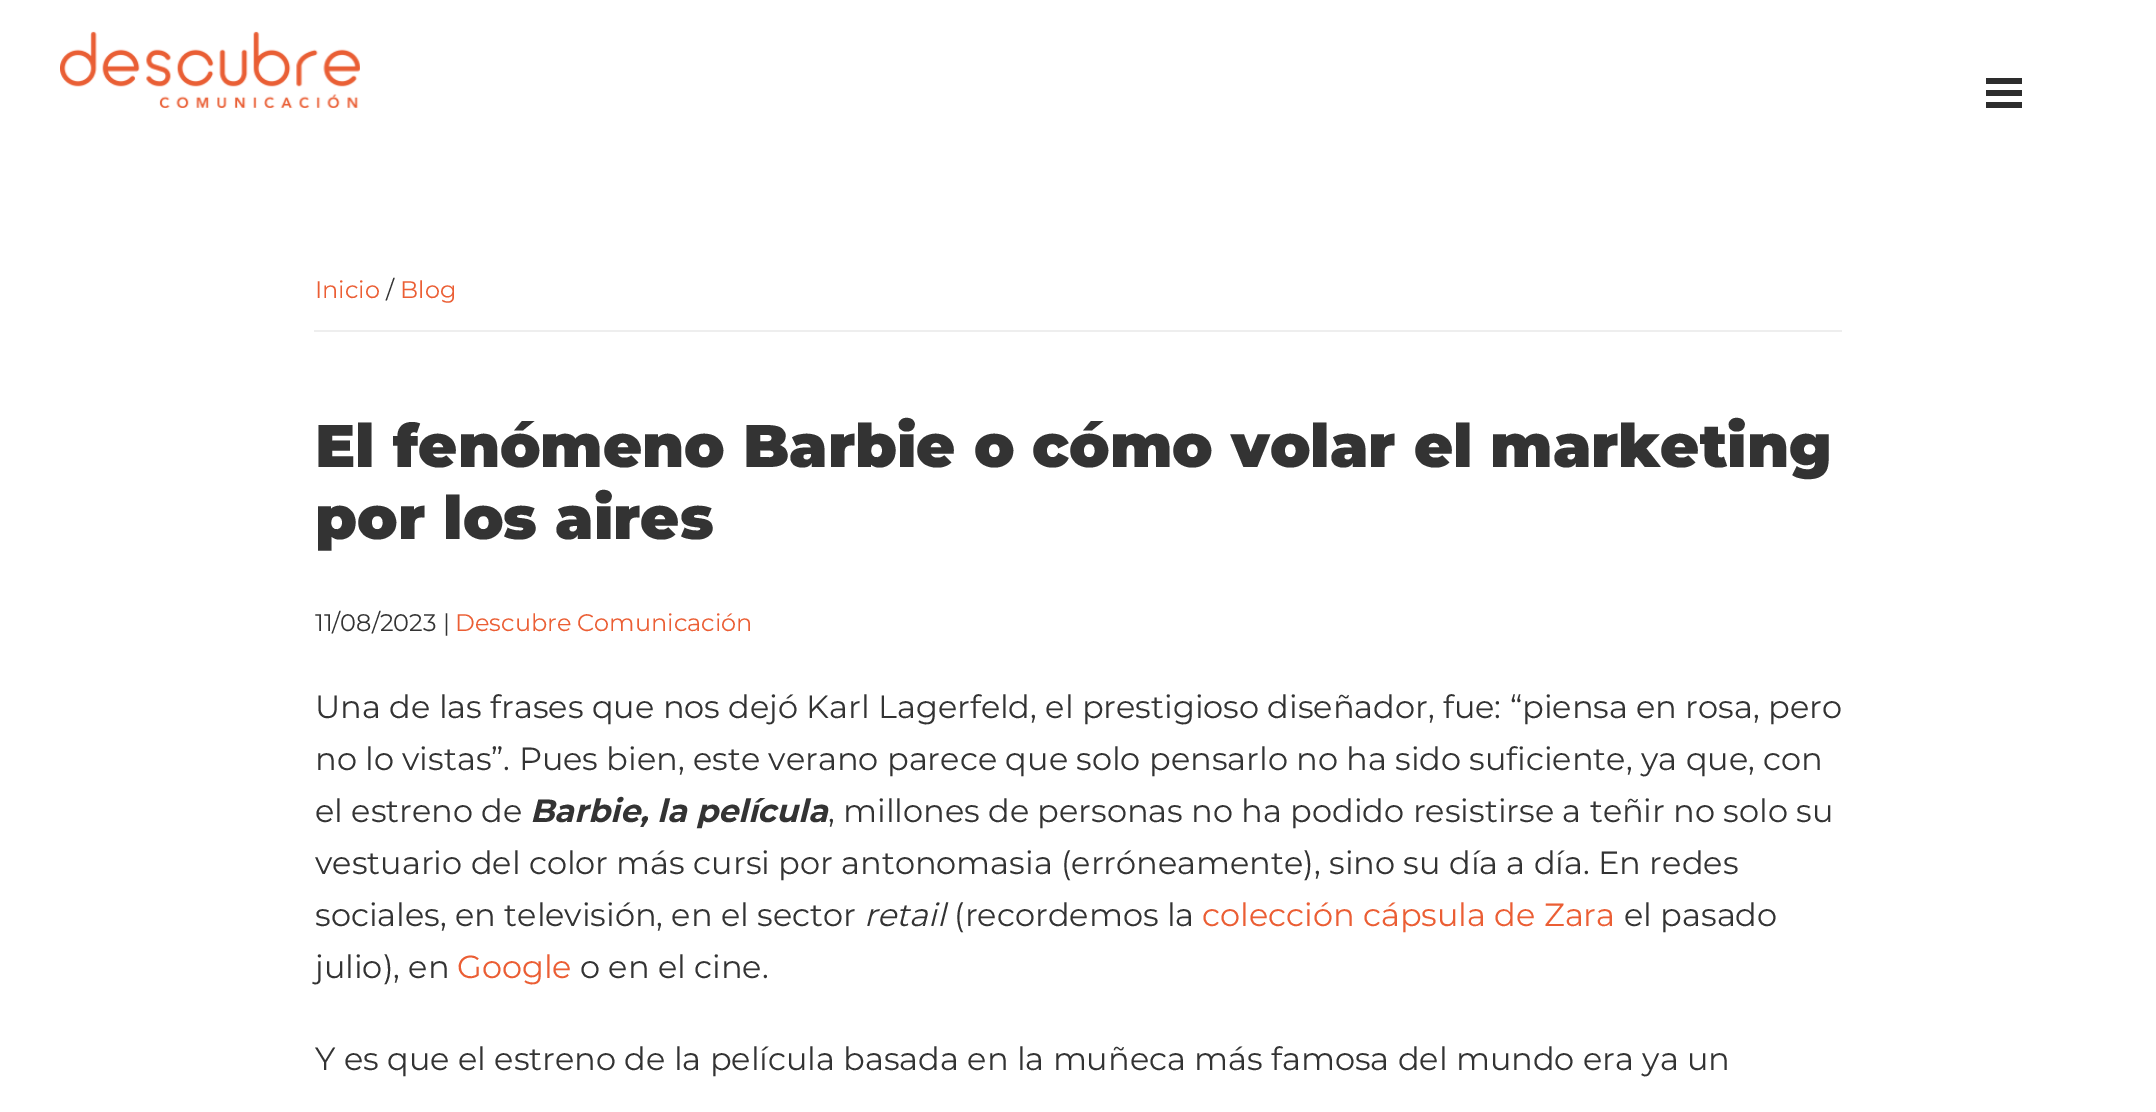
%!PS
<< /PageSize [2156 1112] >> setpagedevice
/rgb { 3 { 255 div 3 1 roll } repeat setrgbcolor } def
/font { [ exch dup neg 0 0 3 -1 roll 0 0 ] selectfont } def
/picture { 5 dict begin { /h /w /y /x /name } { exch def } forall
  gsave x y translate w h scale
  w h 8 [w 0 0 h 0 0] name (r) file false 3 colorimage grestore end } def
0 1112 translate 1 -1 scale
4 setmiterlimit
255 255 255 rgb
0 0 2156 1112 rectfill
[
  [1986 90 36 6 45 45 45]
  [1986 78 36 6 45 45 45]
  [1986 102 36 6 45 45 45]
] { aload pop rgb rectfill } forall
(img/1.rgb) 60 31 300 77 picture
238 238 238 rgb
314 330 1528 2 rectfill
/Montserrat-Regular 24 font
235 94 52 rgb
315 298 moveto (Inicio) show
51 51 51 rgb
386 298 moveto (/) show
235 94 52 rgb
400 298 moveto (Blog) show
/Montserrat-Black 60 font
51 51 51 rgb
315 467 moveto (El fenómeno Barbie o cómo volar el marketing) show
315 539 moveto (por los aires) show
/Montserrat-Regular 24 font
315 631 moveto (11/08/2023 |) show
235 94 52 rgb
455 631 moveto (Descubre Comunicación) show
/Montserrat-Regular 32 font
51 51 51 rgb
[
  [(Una de las frases que nos dejó Karl Lagerfeld, el prestigioso diseñador, fue: “piensa en rosa, pero) 315 718]
  [(no lo vistas”. Pues bien, este verano parece que solo pensarlo no ha sido suficiente, ya que, con) 315 770]
  [(el estreno de) 315 822]
] { aload pop moveto show } forall
/Montserrat-BoldItalic 32 font
530 822 moveto (Barbie, la película) show
/Montserrat-Regular 32 font
[
  [(, millones de personas no ha podido resistirse a teñir no solo su) 828 822]
  [(vestuario del color más cursi por antonomasia \(erróneamente\), sino su día a día. En redes) 315 874]
  [(sociales, en televisión, en el sector) 315 926]
] { aload pop moveto show } forall
/Montserrat-Italic 32 font
864 926 moveto (retail) show
/Montserrat-Regular 32 font
954 926 moveto (\(recordemos la) show
235 94 52 rgb
1202 926 moveto (colección cápsula de Zara) show
51 51 51 rgb
1624 926 moveto (el pasado) show
315 978 moveto (julio\), en) show
235 94 52 rgb
457 978 moveto (Google) show
51 51 51 rgb
580 978 moveto (o en el cine.) show
315 1070 moveto (Y es que el estreno de la película basada en la muñeca más famosa del mundo era ya un) show
showpage
